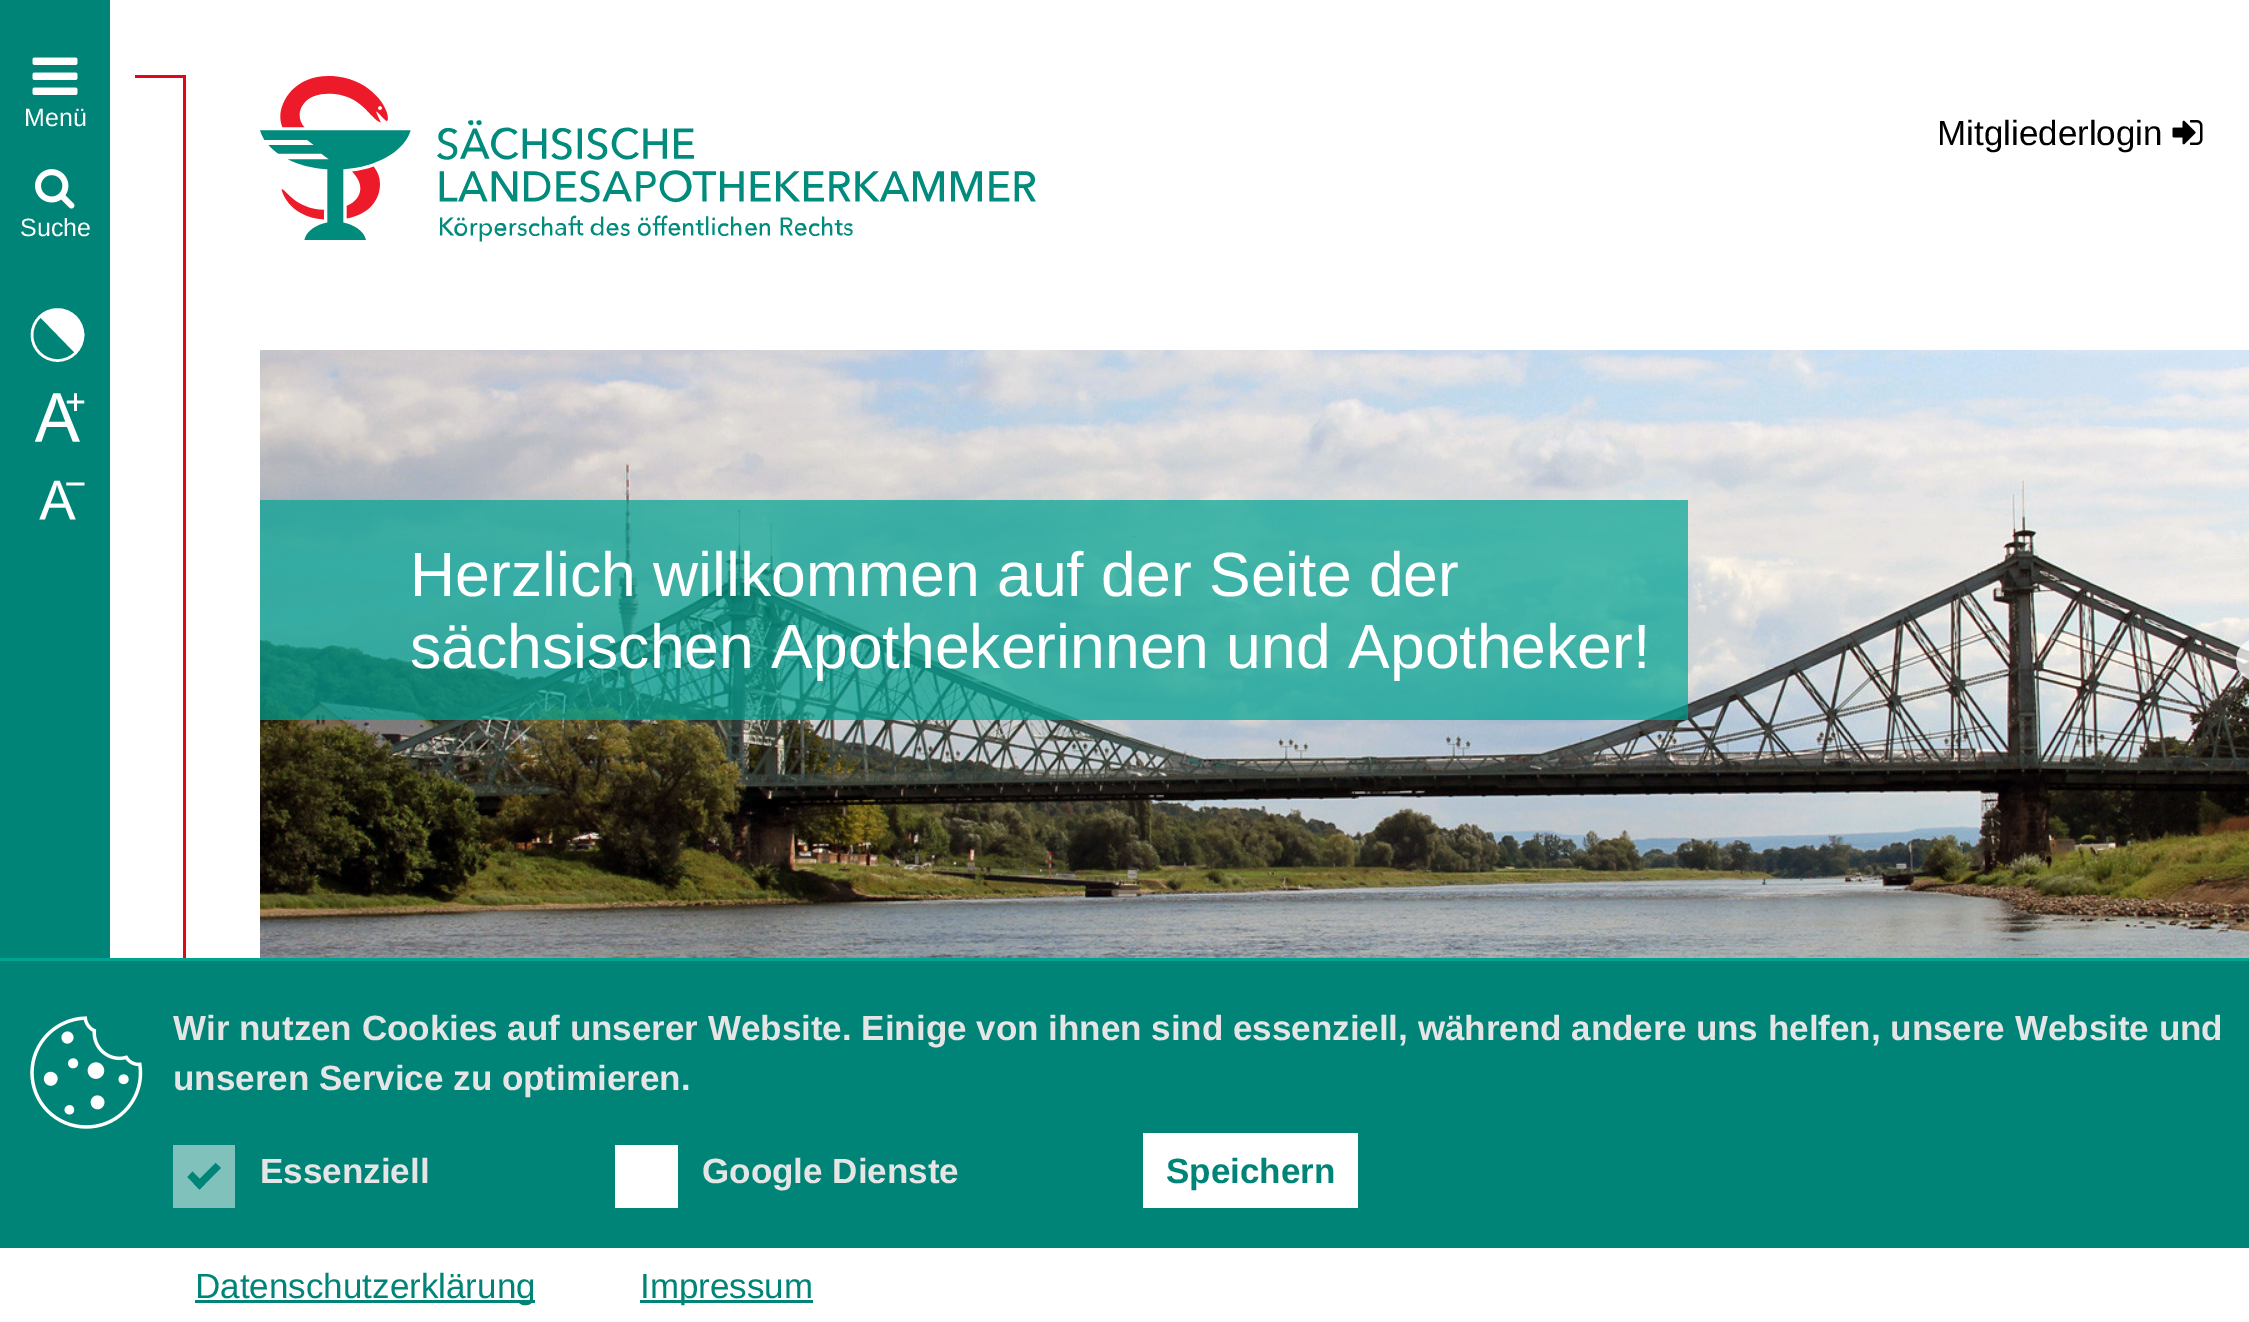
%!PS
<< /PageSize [2249 1322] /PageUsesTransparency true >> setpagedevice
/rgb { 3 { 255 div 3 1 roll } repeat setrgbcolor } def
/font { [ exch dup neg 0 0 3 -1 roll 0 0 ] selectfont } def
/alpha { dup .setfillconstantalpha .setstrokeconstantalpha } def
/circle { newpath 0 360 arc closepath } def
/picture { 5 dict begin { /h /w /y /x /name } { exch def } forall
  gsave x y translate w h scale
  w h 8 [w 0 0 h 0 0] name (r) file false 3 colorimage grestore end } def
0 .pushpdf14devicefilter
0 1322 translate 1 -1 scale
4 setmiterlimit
255 255 255 rgb
0 0 2249 1322 rectfill
0 132 119 rgb
0 0 110 958 rectfill
(img/1.rgb) 32 57 46 38 picture
(img/2.rgb) 35 169 40 40 picture
255 255 255 rgb
75 353 moveto 85 343 85 327 75 317 curveto 66 308 50 308 40 317 curveto closepath fill
2.5 setlinewidth
57.5 335 25.5 circle stroke
(img/3.rgb) 34 393 51 49 picture
(img/4.rgb) 39 480 46 40 picture
228 5 24 rgb
135 75 50 3 rectfill
183 75 3 883 rectfill
(img/5.rgb) 260 76 776 166 picture
(img/6.rgb) 2172 120 31 25 picture
(img/7.rgb) 260 350 1989 608 picture
(img/8.rgb) 2236 640 13 40 picture
0.7 alpha
[
  [260 500 1428 220 0 163 146]
] { aload pop rgb rectfill } forall
1 alpha
[
  [0 961 2249 287 0 132 119]
  [0 958 2249 3 0 163 146]
] { aload pop rgb rectfill } forall
(img/9.rgb) 30 1016 113 113 picture
128 194 187 rgb
173 1145 62 63 rectfill
0 132 119 rgb
215.5 1163 moveto 221 1168 lineto 199.5 1189.5 lineto 194.5 1184 lineto closepath fill
192.5 1171.5 moveto 205 1184 lineto 199.5 1189.5 lineto 187.5 1177 lineto closepath fill
[
  [615 1145 63 63 255 255 255]
  [1143 1133 215 75 255 255 255]
  [195 1300 340 3 0 132 119]
  [640 1300 173 3 0 132 119]
] { aload pop rgb rectfill } forall
/LiberationSans-Regular 25 font
255 255 255 rgb
24 126 moveto (Menü) show
20 236 moveto (Suche) show
/LiberationSans-Regular 35 font
0 0 0 rgb
1937 145 moveto (Mitgliederlogin) show
/LiberationSans-Regular 62.5 font
255 255 255 rgb
410 596 moveto (Herzlich willkommen auf der Seite der) show
410 668 moveto (sächsischen Apothekerinnen und Apotheker!) show
/LiberationSans-Bold 35 font
229 229 229 rgb
[
  [(Wir nutzen Cookies auf unserer Website. Einige von ihnen sind essenziell, während andere uns helfen, unsere Website und) 173 1040]
  [(unseren Service zu optimieren.) 173 1090]
  [(Essenziell) 260 1183]
  [(Google Dienste) 702 1183]
] { aload pop moveto show } forall
0 132 119 rgb
1166 1183 moveto (Speichern) show
/LiberationSans-Regular 35 font
195 1298 moveto (Datenschutzerklärung) show
640 1298 moveto (Impressum) show
.poppdf14devicefilter showpage
